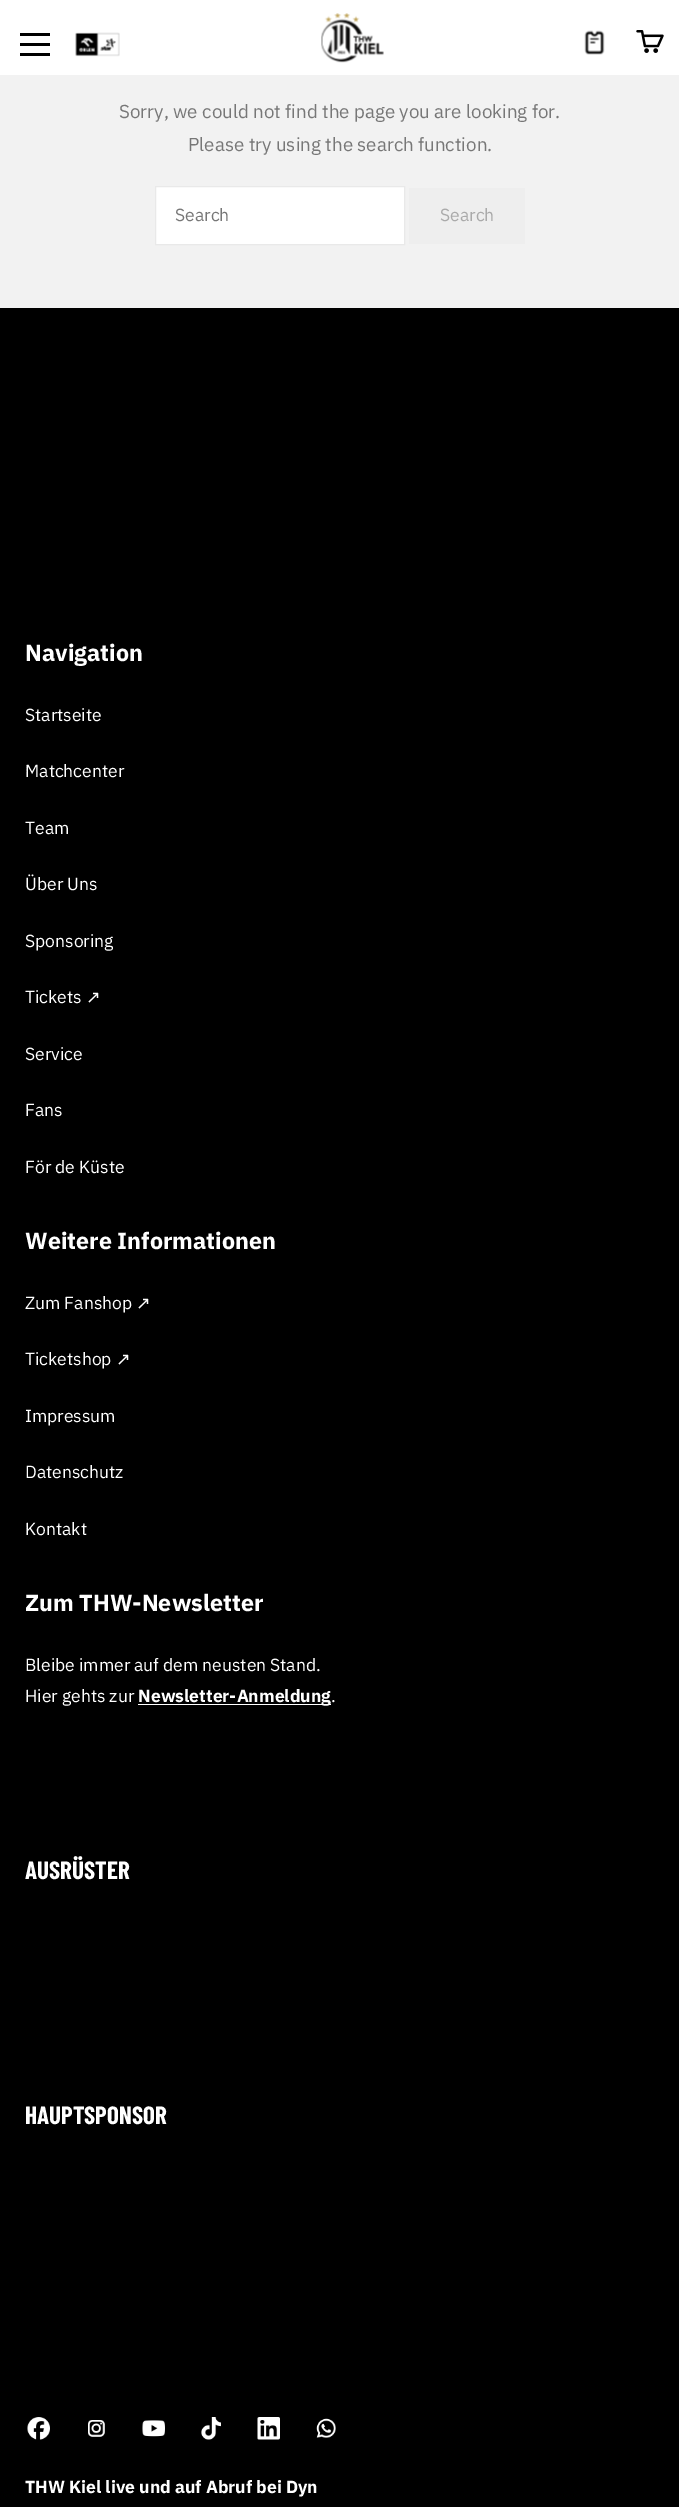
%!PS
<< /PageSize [679 2507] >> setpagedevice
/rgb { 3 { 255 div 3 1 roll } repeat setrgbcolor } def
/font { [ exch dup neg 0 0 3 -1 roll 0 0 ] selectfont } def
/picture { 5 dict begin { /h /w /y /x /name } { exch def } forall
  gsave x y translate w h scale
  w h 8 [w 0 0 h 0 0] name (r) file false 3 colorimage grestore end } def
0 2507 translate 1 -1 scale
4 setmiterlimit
242 242 242 rgb
0 0 679 2507 rectfill
[
  [0 0 679 75 255 255 255]
  [20 33 30 3 0 0 0]
  [20 43 30 3 0 0 0]
  [20 53 30 3 0 0 0]
] { aload pop rgb rectfill } forall
(img/1.rgb) 75 32 45 25 picture
(img/2.rgb) 321 13 63 50 picture
(img/3.rgb) 584 30 21 25 picture
(img/4.rgb) 636 30 28 23 picture
255 255 255 rgb
155.5 186.5 moveto 404.5 186.5 lineto 404.5 244.5 lineto 155.5 244.5 lineto closepath gsave fill grestore
233 233 233 rgb
stroke
[
  [409 188 116 56 238 238 238]
  [0 308 679 2199 0 0 0]
  [138 1704 193 1 255 255 255]
] { aload pop rgb rectfill } forall
(img/5.rgb) 27 2417 23 23 picture
(img/6.rgb) 88 2420 17 17 picture
(img/7.rgb) 142 2420 23 17 picture
(img/8.rgb) 201 2417 20 23 picture
(img/9.rgb) 257 2417 23 23 picture
(img/10.rgb) 316 2418 20 20 picture
/IBMPlexSans-Regular 18.75 font
119 119 119 rgb
119 118 moveto (Sorry, we could not find the page you are looking for.) show
188 151 moveto (Please try using the search function.) show
/IBMPlexSans-Regular 17.5 font
175 221 moveto (Search) show
170 170 170 rgb
440 221 moveto (Search) show
/IBMPlexSans-Bold 23.25 font
255 255 255 rgb
25 661 moveto (Navigation) show
/IBMPlexSans-Regular 17.5 font
[
  [(Startseite) 25 721]
  [(Matchcenter) 25 777]
  [(Team) 25 834]
  [(Über Uns) 25 890]
  [(Sponsoring) 25 947]
  [(Tickets) 25 1003]
] { aload pop moveto show } forall
/DejaVuSans-Regular 17.5 font
86 1003 moveto (↗) show
/IBMPlexSans-Regular 17.5 font
[
  [(Service) 25 1060]
  [(Fans) 25 1116]
  [(För de Küste) 25 1173]
] { aload pop moveto show } forall
/IBMPlexSans-Bold 23.25 font
25 1249 moveto (Weitere Informationen) show
/IBMPlexSans-Regular 17.5 font
25 1309 moveto (Zum Fanshop) show
/DejaVuSans-Regular 17.5 font
136 1309 moveto (↗) show
/IBMPlexSans-Regular 17.5 font
25 1365 moveto (Ticketshop) show
/DejaVuSans-Regular 17.5 font
116 1365 moveto (↗) show
/IBMPlexSans-Regular 17.5 font
[
  [(Impressum) 25 1422]
  [(Datenschutz) 25 1478]
  [(Kontakt) 25 1535]
] { aload pop moveto show } forall
/IBMPlexSans-Bold 23.25 font
25 1611 moveto (Zum THW-Newsletter) show
/IBMPlexSans-Regular 17.5 font
25 1671 moveto (Bleibe immer auf dem neusten Stand.) show
25 1702 moveto (Hier gehts zur) show
/IBMPlexSans-Bold 17.5 font
138 1702 moveto (Newsletter-Anmeldung) show
/IBMPlexSans-Regular 17.5 font
331 1702 moveto (.) show
/BarlowCondensed-Bold 25 font
25 1879 moveto (AUSRÜSTER) show
25 2124 moveto (HAUPTSPONSOR) show
/IBMPlexSans-Bold 17.5 font
25 2493 moveto (THW Kiel live und auf Abruf bei Dyn) show
showpage
